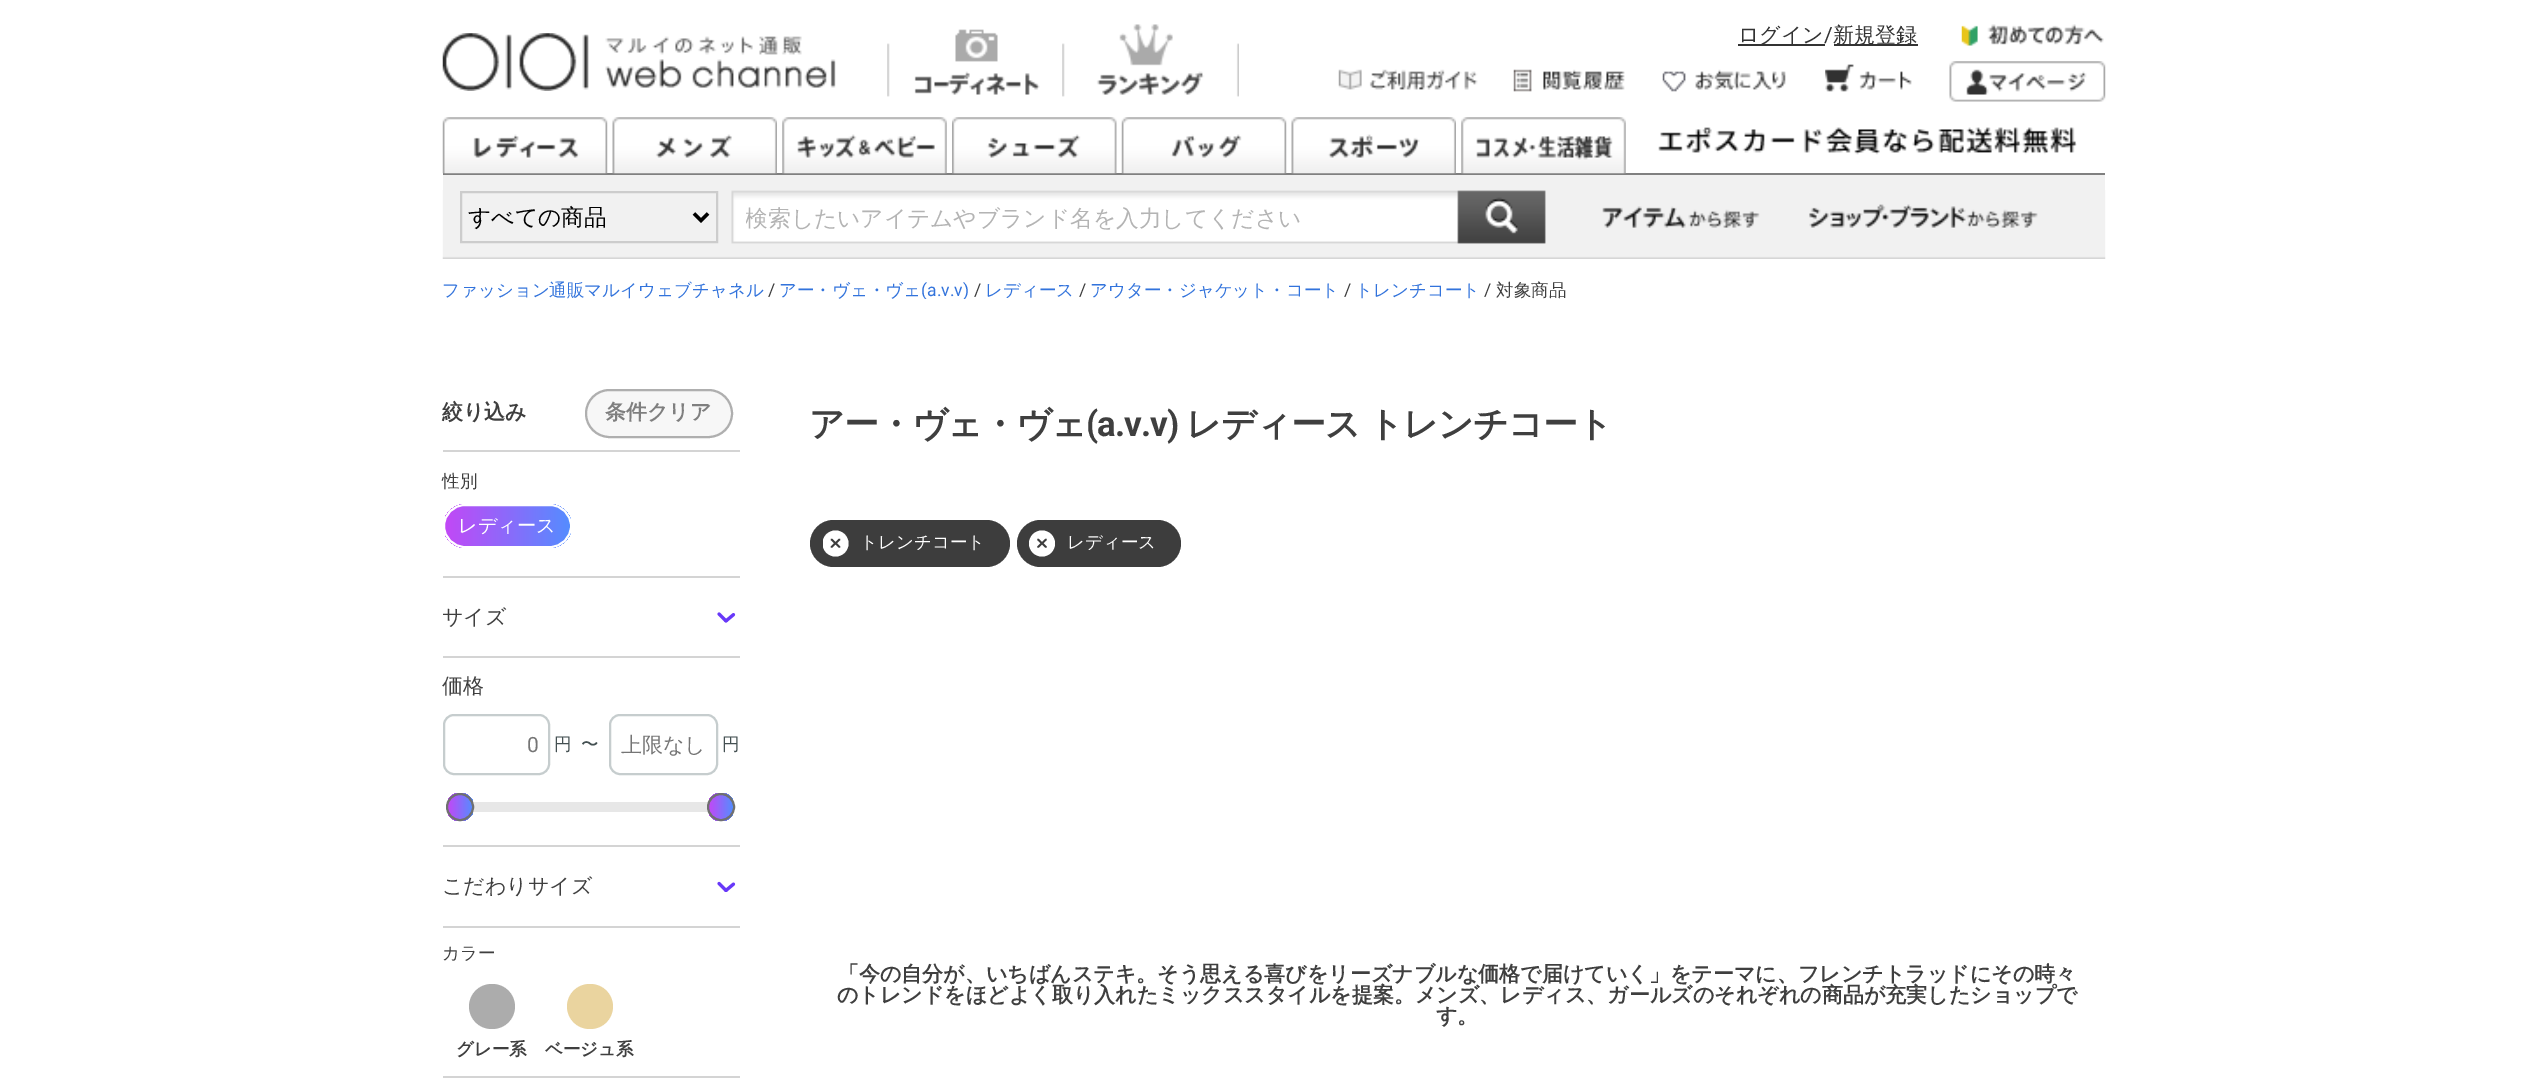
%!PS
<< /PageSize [2545 1079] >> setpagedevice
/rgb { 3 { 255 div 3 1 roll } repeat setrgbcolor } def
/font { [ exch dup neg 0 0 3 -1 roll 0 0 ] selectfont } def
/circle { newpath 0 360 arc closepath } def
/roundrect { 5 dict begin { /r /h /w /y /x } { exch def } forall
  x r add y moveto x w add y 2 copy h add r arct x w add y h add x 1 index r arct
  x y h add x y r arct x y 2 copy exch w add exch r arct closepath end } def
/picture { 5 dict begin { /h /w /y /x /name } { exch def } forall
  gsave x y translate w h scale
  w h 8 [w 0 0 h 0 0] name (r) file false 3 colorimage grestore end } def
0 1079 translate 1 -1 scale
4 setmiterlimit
255 255 255 rgb
0 0 2545 1079 rectfill
(img/1.rgb) 442 33 394 58 picture
(img/2.rgb) 887 29 153 68 picture
(img/3.rgb) 1062 24 177 73 picture
51 51 51 rgb
1738 44 87 2 rectfill
1834 44 84 2 rectfill
(img/4.rgb) 1961 24 143 22 picture
(img/5.rgb) 1338 69 140 21 picture
(img/6.rgb) 1513 69 112 23 picture
(img/7.rgb) 1662 69 124 23 picture
(img/8.rgb) 1825 64 87 28 picture
(img/9.rgb) 1949 61 157 41 picture
128 128 128 rgb
443 173 1662 2 rectfill
(img/10.rgb) 442 117 166 57 picture
(img/11.rgb) 612 117 165 57 picture
(img/12.rgb) 782 117 165 57 picture
(img/13.rgb) 952 117 165 57 picture
(img/14.rgb) 1121 117 166 57 picture
(img/15.rgb) 1291 117 165 57 picture
(img/16.rgb) 1461 117 165 57 picture
(img/17.rgb) 1658 127 419 28 picture
241 241 241 rgb
443 175 1662 15 rectfill
(img/18.rgb) 442 190 1664 69 picture
204 204 204 rgb
2 setlinewidth
461 192 256 50 rectstroke
0 0 0 rgb
3.5 setlinewidth
694 213.5 moveto 701 220.5 lineto 708 213.5 lineto stroke
(img/19.rgb) 1602 206 158 22 picture
(img/20.rgb) 1809 204 229 25 picture
212 212 212 rgb
443 450 297 2 rectfill
247 247 247 rgb
586 390 146 47 23.5 roundrect gsave fill grestore
175 175 175 rgb
2 setlinewidth
stroke
212 212 212 rgb
443 576 297 2 rectfill
gsave
443 504 129 44 22 roundrect clip newpath
gsave 445 504 moveto 571 504 lineto 571 548 lineto 445 548 lineto closepath clip newpath
<< /ShadingType 2 /ColorSpace /DeviceRGB /Coords [445 526 571 526] /Extend [true true] /Function << /FunctionType 2 /Domain [0 1] /C0 [0.761 0.282 0.965] /C1 [0.329 0.553 1] /N 1 >> >> shfill grestore
grestore
255 255 255 rgb
444 505 127 42 21 roundrect stroke
212 212 212 rgb
443 656 297 2 rectfill
(img/21.rgb) 717 612 19 11 picture
443 845 297 2 rectfill
198 205 206 rgb
444 715 105 59 10 roundrect stroke
610 715 107 59 10 roundrect stroke
gsave
446 793 28 28 14 roundrect clip newpath
gsave 448 793 moveto 473 793 lineto 473 821 lineto 448 821 lineto closepath clip newpath
<< /ShadingType 2 /ColorSpace /DeviceRGB /Coords [448 807 473 807] /Extend [true true] /Function << /FunctionType 2 /Domain [0 1] /C0 [0.761 0.282 0.965] /C1 [0.329 0.553 1] /N 1 >> >> shfill grestore
grestore
231 231 231 rgb
473 802 235 10 rectfill
112 112 112 rgb
460 807 13 circle stroke
gsave
707 793 28 28 14 roundrect clip newpath
gsave 709 793 moveto 733 793 lineto 733 821 lineto 709 821 lineto closepath clip newpath
<< /ShadingType 2 /ColorSpace /DeviceRGB /Coords [709 807 733 807] /Extend [true true] /Function << /FunctionType 2 /Domain [0 1] /C0 [0.761 0.282 0.965] /C1 [0.329 0.553 1] /N 1 >> >> shfill grestore
grestore
721 807 13 circle stroke
212 212 212 rgb
443 926 297 2 rectfill
(img/22.rgb) 717 881 19 11 picture
443 1076 297 2 rectfill
172 172 172 rgb
469 984 46 45 22.5 roundrect fill
234 212 159 rgb
567 984 46 45 22.5 roundrect fill
61 61 61 rgb
810 520 200 47 23.5 roundrect fill
gsave
823 530 26 27 rectclip
255 255 255 rgb
835.5 543.5 13 circle fill
grestore
1.8 setlinewidth
1 setlinecap
831.5 539.5 moveto 839.5 547 lineto 831.5 547 moveto 839.5 539.5 lineto stroke
1017 520 164 47 23.5 roundrect fill
255 255 255 rgb
1042 543.5 13 circle fill
61 61 61 rgb
1038 539.5 moveto 1046 547 lineto 1038 547 moveto 1046 539.5 lineto stroke
/WenQuanYiZenHei-Medium 21 font
51 51 51 rgb
1738 42 moveto (ログイン) show
/Roboto-Regular 21 font
1824 42 moveto (/) show
/WenQuanYiZenHei-Medium 21 font
1833 42 moveto (新規登録) show
/WenQuanYiZenHei-Medium 22.75 font
0 0 0 rgb
468 225 moveto (すべての商品) show
gsave
746 194 698 49 rectclip
180 180 180 rgb
745 226 moveto (検索したいアイテムやブランド名を入力してください) show
grestore
/WenQuanYiZenHei-Medium 17.5 font
50 115 220 rgb
442 296 moveto (ファッション通販マルイウェブチャネル) show
/Roboto-Regular 17.5 font
63 63 63 rgb
768 296 moveto (/) show
/WenQuanYiZenHei-Medium 17.5 font
50 115 220 rgb
779 296 moveto (アー・ヴェ・ヴェ) show
gsave
779 282 191 17 rectclip
/Roboto-Regular 17.5 font
921 296 moveto (\(a.v.v\)) show
grestore
/Roboto-Regular 17.5 font
63 63 63 rgb
974 296 moveto (/) show
/WenQuanYiZenHei-Medium 17.5 font
50 115 220 rgb
985 296 moveto (レディース) show
/Roboto-Regular 17.5 font
63 63 63 rgb
1079 296 moveto (/) show
/WenQuanYiZenHei-Medium 17.5 font
50 115 220 rgb
1090 296 moveto (アウター・ジャケット・コート) show
/Roboto-Regular 17.5 font
63 63 63 rgb
1344 296 moveto (/) show
/WenQuanYiZenHei-Medium 17.5 font
50 115 220 rgb
1355 296 moveto (トレンチコート) show
/Roboto-Regular 17.5 font
63 63 63 rgb
1484 296 moveto (/) show
/WenQuanYiZenHei-Medium 17.5 font
1496 296 moveto (対象商品) show
/WenQuanYiZenHei-Bold 21 font
442 419 moveto (絞り込み) show
127 127 127 rgb
605 419 moveto (条件クリア) show
/WenQuanYiZenHei-Medium 17.5 font
63 63 63 rgb
442 487 moveto (性別) show
/WenQuanYiZenHei-Medium 19.25 font
255 255 255 rgb
458 532 moveto (レディース) show
/WenQuanYiZenHei-Medium 21 font
63 63 63 rgb
442 624 moveto (サイズ) show
442 693 moveto (価格) show
/Roboto-Regular 21 font
117 117 117 rgb
527 752 moveto (0) show
/WenQuanYiZenHei-Medium 17.5 font
68 80 82 rgb
554 750 moveto (円) show
581 750 moveto (〜) show
/WenQuanYiZenHei-Medium 21 font
117 117 117 rgb
621 752 moveto (上限なし) show
/WenQuanYiZenHei-Medium 17.5 font
68 80 82 rgb
722 750 moveto (円) show
/WenQuanYiZenHei-Medium 21 font
63 63 63 rgb
442 893 moveto (こだわりサイズ) show
/WenQuanYiZenHei-Medium 17.5 font
442 959 moveto (カラー) show
/WenQuanYiZenHei-Bold 17.5 font
456 1055 moveto (グレー系) show
545 1055 moveto (ベージュ系) show
/WenQuanYiZenHei-Bold 35 font
809 436 moveto -0.9 0 (アー・ヴェ・ヴェ) ashow
/Roboto-Bold 35 font
1086 436 moveto -0.9 0 (\(a.v.v\)) ashow
/WenQuanYiZenHei-Bold 35 font
1186 436 moveto -1 0 32 -0.9 0 (レディース トレンチコート) awidthshow
/WenQuanYiZenHei-Medium 17.5 font
255 255 255 rgb
860 548 moveto (トレンチコート) show
1067 548 moveto (レディース) show
/WenQuanYiZenHei-Bold 21 font
63 63 63 rgb
[
  [(「今の自分が、いちばんステキ。そう思える喜びをリーズナブルな価格で届けていく」をテーマに、フレンチトラッドにその時々) 838 981]
  [(のトレンドをほどよく取り入れたミックススタイルを提案。メンズ、レディス、ガールズのそれぞれの商品が充実したショップで) 837 1002]
  [(す。) 1436 1023]
] { aload pop moveto show } forall
showpage
